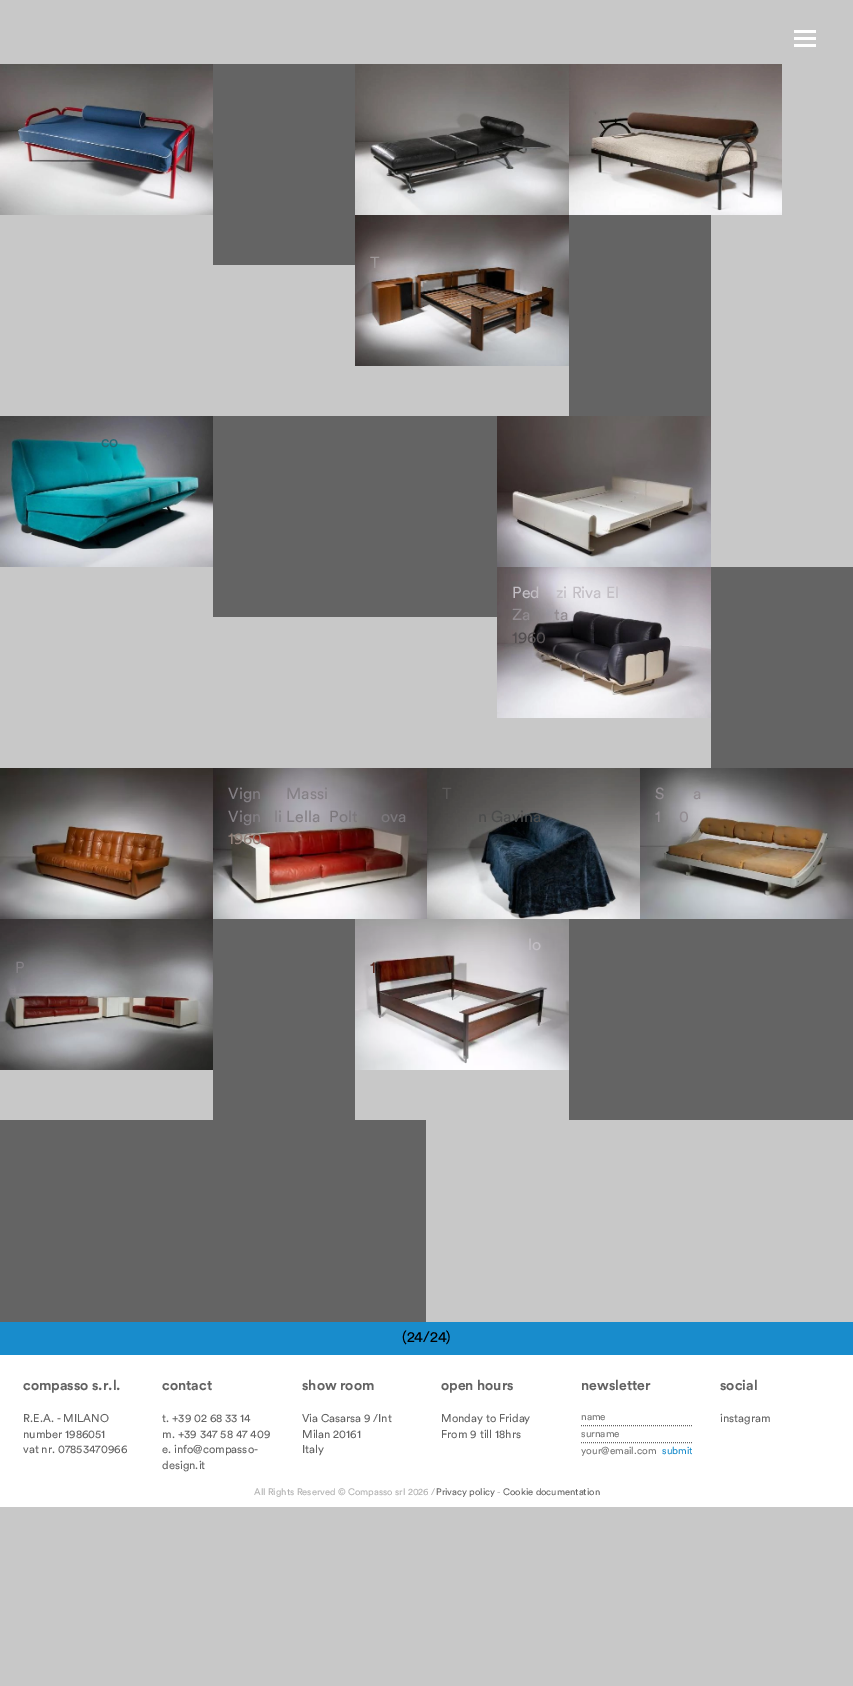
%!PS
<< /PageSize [853 1686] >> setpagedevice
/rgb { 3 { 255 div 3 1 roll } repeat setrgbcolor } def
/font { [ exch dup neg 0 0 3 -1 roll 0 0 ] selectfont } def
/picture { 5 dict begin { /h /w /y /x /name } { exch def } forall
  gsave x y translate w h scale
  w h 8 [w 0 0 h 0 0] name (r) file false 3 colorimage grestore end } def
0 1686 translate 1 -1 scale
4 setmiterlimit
200 200 200 rgb
0 0 853 1686 rectfill
[
  [794 37 22 3 255 255 255]
  [794 30 22 3 255 255 255]
  [794 44 22 3 255 255 255]
] { aload pop rgb rectfill } forall
(img/1.rgb) 0 64 213 151 picture
100 100 100 rgb
213 64 142 201 rectfill
(img/2.rgb) 355 64 214 151 picture
(img/3.rgb) 569 64 213 151 picture
(img/4.rgb) 355 215 214 151 picture
569 215 142 201 rectfill
(img/5.rgb) 0 416 213 151 picture
213 416 284 201 rectfill
(img/6.rgb) 497 416 214 151 picture
(img/7.rgb) 497 567 214 151 picture
711 567 142 201 rectfill
(img/8.rgb) 0 768 213 151 picture
(img/9.rgb) 213 768 214 151 picture
(img/10.rgb) 427 768 213 151 picture
(img/11.rgb) 640 768 213 151 picture
(img/12.rgb) 0 919 213 151 picture
213 919 142 201 rectfill
(img/13.rgb) 355 919 214 151 picture
[
  [569 919 284 201 100 100 100]
  [0 1120 426 202 100 100 100]
  [0 1322 853 33 24 140 204]
  [0 1355 853 152 255 255 255]
] { aload pop rgb rectfill } forall
99 99 99 rgb
[1 1] 0 setdash
581 1425.5 moveto 693 1425.5 lineto stroke
581 1442.5 moveto 693 1442.5 lineto stroke
/Circular-Regular 16 font
158 152 153 rgb
370 268 moveto (T) show
37 107 118 rgb
101 447 moveto (co) show
194 190 196 rgb
512 598 moveto (Ped) show
556 598 moveto (zi Riva El) show
146 140 145 rgb
512 620 moveto (Za) show
554 620 moveto (ta) show
83 78 80 rgb
512 643 moveto (1960) show
132 128 133 rgb
[
  [(Vign) 228 799]
  [(Massi) 286 799]
  [(Vign) 228 822]
  [(li Lella) 274 822]
] { aload pop moveto show } forall
123 119 123 rgb
329 822 moveto (Polt) show
381 822 moveto (ova) show
145 129 122 rgb
228 844 moveto (1960) show
89 87 86 rgb
442 799 moveto (T) show
75 76 76 rgb
478 822 moveto (n Gavina) show
146 140 145 rgb
[
  [(S) 655 799]
  [(a) 693 799]
  [(1) 655 822]
  [(0) 679 822]
] { aload pop moveto show } forall
132 128 133 rgb
15 973 moveto (P) show
194 190 196 rgb
528 950 moveto (lo) show
89 37 27 rgb
370 973 moveto (1) show
/Circular-Regular 15 font
0 0 0 rgb
402 1342 moveto (\(24/24\)) show
/Circular-Bold 14 font
99 99 99 rgb
23 1390 moveto (compasso s.r.l.) show
/Circular-Regular 11.25 font
[
  [(R.E.A. - MILANO) 23 1422]
  [(number 1986051) 23 1438]
  [(vat nr. 07853470966) 23 1453]
] { aload pop moveto show } forall
/Circular-Bold 14 font
162 1390 moveto (contact) show
/Circular-Regular 11.25 font
[
  [(t. +39 02 68 33 14) 162 1422]
  [(m. +39 347 58 47 409) 162 1438]
  [(e. info@compasso-) 162 1453]
  [(design.it) 162 1469]
] { aload pop moveto show } forall
/Circular-Bold 14 font
302 1390 moveto (show room) show
/Circular-Regular 11.25 font
[
  [(Via Casarsa 9 /Int) 302 1422]
  [(Milan 20161) 302 1438]
  [(Italy) 302 1453]
] { aload pop moveto show } forall
/Circular-Bold 14 font
441 1390 moveto (open hours) show
/Circular-Regular 11.25 font
441 1422 moveto (Monday to Friday) show
441 1438 moveto (From 9 till 18hrs) show
/Circular-Bold 14 font
581 1390 moveto (newsletter) show
/Circular-Regular 10 font
117 117 117 rgb
[
  [(name) 581 1420]
  [(surname) 581 1437]
  [(your@email.com) 581 1454]
] { aload pop moveto show } forall
24 140 204 rgb
662 1454 moveto (submit) show
/Circular-Bold 14 font
99 99 99 rgb
720 1390 moveto (social) show
/Circular-Regular 11.25 font
720 1422 moveto (instagram) show
/Circular-Regular 9.4 font
177 177 177 rgb
254 1495 moveto (All Rights Reserved © Compasso srl 2026 /) show
99 99 99 rgb
436 1495 moveto (Privacy policy) show
177 177 177 rgb
497 1495 moveto (-) show
99 99 99 rgb
503 1495 moveto (Cookie documentation) show
showpage
